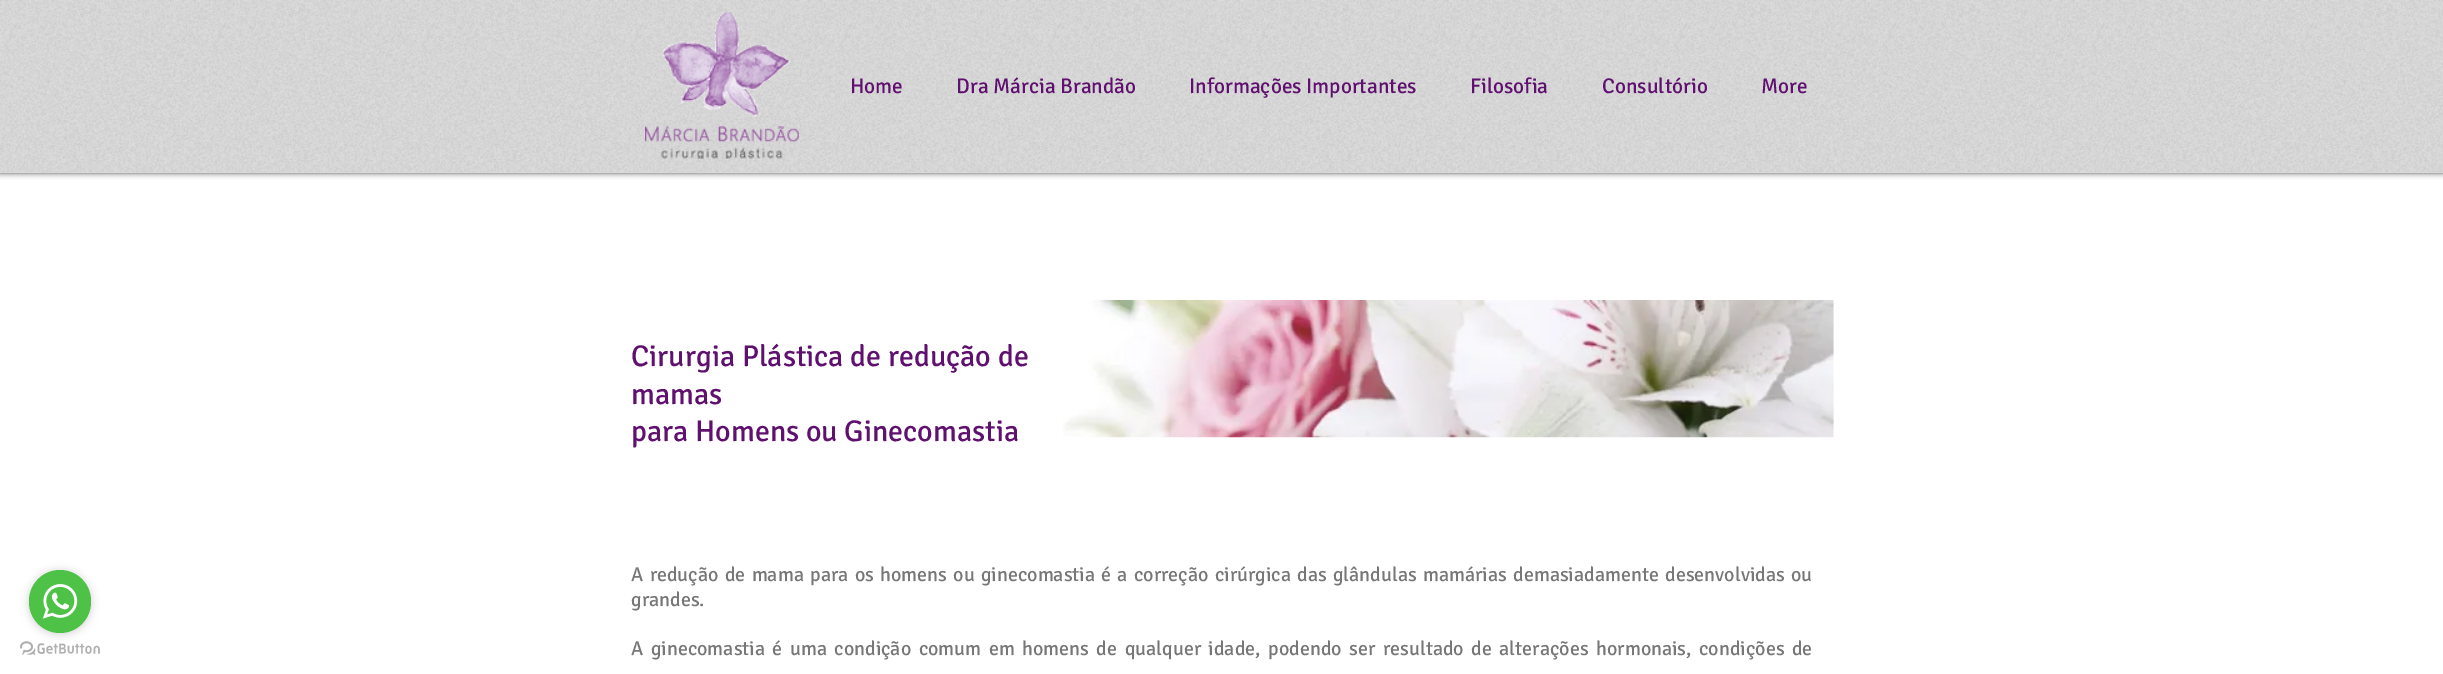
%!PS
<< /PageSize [2443 674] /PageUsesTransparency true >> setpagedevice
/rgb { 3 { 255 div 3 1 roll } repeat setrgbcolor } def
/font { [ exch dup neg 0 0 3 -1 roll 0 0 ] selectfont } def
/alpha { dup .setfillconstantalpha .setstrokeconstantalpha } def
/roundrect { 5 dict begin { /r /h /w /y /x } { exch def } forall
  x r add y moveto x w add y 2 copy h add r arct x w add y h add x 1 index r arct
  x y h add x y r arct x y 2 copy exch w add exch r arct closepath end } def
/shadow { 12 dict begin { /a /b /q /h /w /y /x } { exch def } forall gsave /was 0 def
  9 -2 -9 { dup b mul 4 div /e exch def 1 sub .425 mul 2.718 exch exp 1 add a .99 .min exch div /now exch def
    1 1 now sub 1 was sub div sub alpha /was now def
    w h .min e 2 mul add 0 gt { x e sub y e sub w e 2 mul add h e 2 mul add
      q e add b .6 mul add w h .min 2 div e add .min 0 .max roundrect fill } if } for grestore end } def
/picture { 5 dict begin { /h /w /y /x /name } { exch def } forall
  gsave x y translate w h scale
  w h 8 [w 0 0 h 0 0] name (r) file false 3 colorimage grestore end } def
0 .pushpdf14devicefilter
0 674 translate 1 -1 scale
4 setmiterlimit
255 255 255 rgb
0 0 2443 674 rectfill
(img/2.rgb) 20 641 80 14 picture
136 136 136 rgb
29 571 62 63 31 4.5 0.4 shadow
77 194 71 rgb
29 570 62 63 31 roundrect fill
(img/1.rgb) 42 584 36 35 picture
0 0 0 rgb
0 0 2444 173 0 3 0.7 shadow
219 219 219 rgb
0 0 2443 173 rectfill
(img/3.rgb) 0 0 2443 173 picture
(img/4.rgb) 645 12 154 147 picture
(img/5.rgb) 1063 300 771 138 picture
/Signika-Regular 21.25 font
96 16 110 rgb
[
  [(Home) 850 93]
  [(Dra Márcia Brandão) 956 93]
  [(Informações Importantes) 1189 93]
  [(Filosofia) 1470 93]
  [(Consultório) 1602 93]
  [(More) 1761 93]
] { aload pop moveto show } forall
/Signika-Regular 30 font
[
  [(Cirurgia Plástica de redução de) 631 366]
  [(mamas) 631 404]
  [(para Homens ou Ginecomastia) 631 441]
] { aload pop moveto show } forall
/Signika-Regular 20 font
119 119 119 rgb
631 581 moveto 1.9 0 32 (A redução de mama para os homens ou ginecomastia é a correção cirúrgica das glândulas mamárias demasiadamente desenvolvidas ou) widthshow
631 606 moveto (grandes.) show
631 655 moveto 3.1 0 32 (A ginecomastia é uma condição comum em homens de qualquer idade, podendo ser resultado de alterações hormonais, condições de) widthshow
.poppdf14devicefilter showpage
